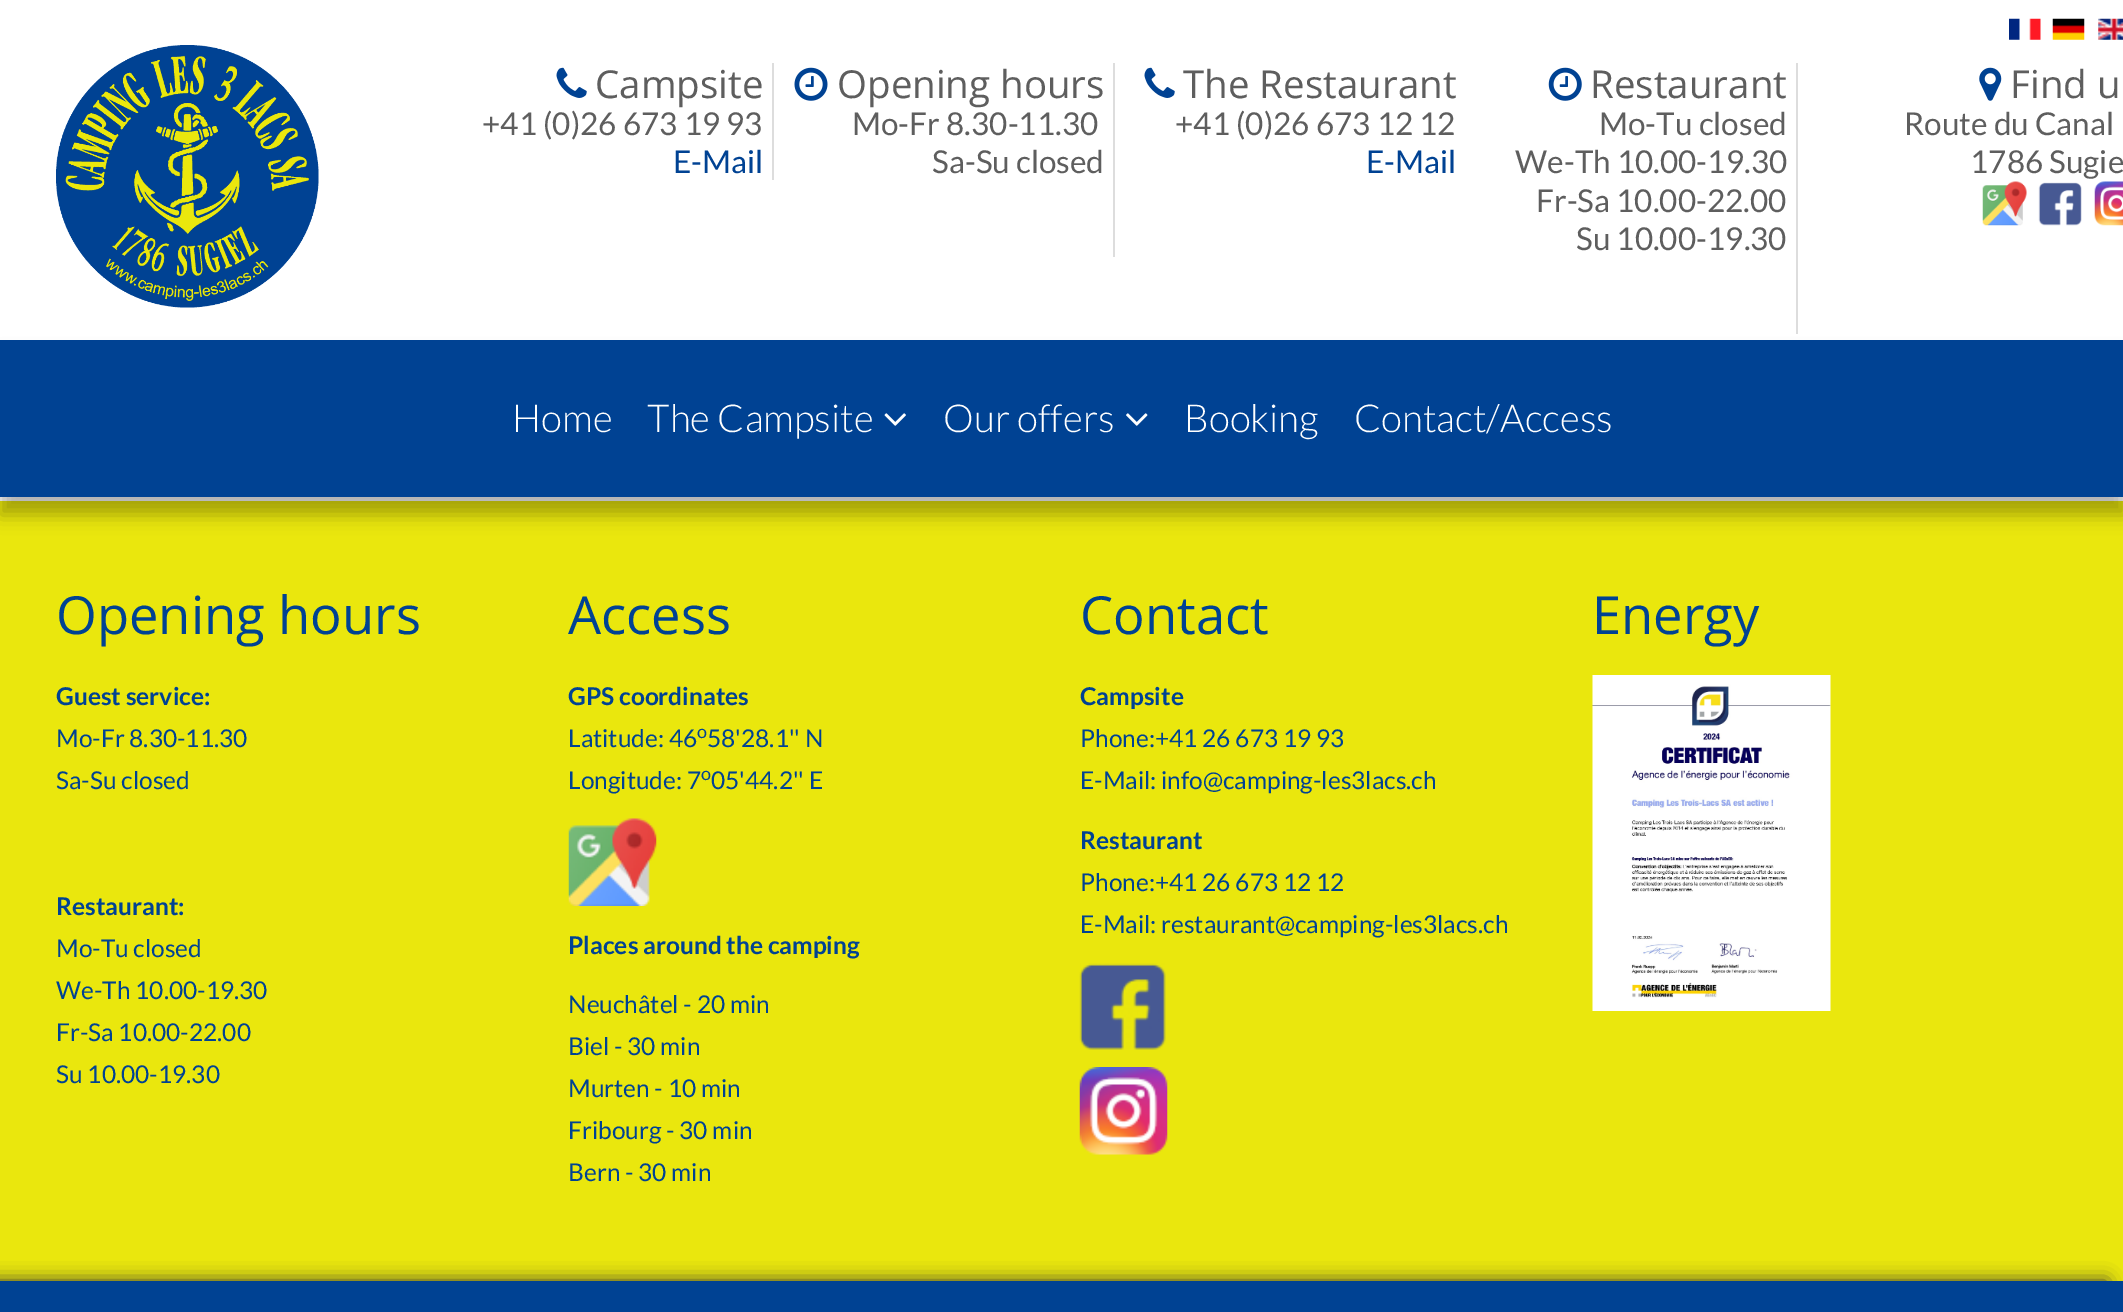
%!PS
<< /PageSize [2123 1312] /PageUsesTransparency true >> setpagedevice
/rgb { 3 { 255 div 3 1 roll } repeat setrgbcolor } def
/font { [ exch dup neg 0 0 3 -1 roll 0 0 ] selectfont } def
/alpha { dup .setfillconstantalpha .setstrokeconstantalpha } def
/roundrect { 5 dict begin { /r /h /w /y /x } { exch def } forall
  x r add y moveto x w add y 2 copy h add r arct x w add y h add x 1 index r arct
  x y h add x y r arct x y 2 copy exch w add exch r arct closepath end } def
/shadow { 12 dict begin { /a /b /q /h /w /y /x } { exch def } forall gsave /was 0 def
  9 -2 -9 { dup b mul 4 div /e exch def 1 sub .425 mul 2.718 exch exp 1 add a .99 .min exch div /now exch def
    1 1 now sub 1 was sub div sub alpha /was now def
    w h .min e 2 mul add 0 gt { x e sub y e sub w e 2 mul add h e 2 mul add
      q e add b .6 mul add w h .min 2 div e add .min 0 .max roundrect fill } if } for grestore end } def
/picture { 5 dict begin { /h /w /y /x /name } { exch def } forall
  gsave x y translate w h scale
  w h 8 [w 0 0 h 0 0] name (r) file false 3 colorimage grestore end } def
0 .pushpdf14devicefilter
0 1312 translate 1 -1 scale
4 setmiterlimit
255 255 255 rgb
0 0 2123 1312 rectfill
(img/1.rgb) 56 45 263 263 picture
221 221 221 rgb
772 63 2 117 rectfill
(img/2.rgb) 556 67 31 31 picture
1113 63 2 194 rectfill
(img/3.rgb) 794 67 34 34 picture
(img/2.rgb) 1144 67 31 31 picture
1796 63 2 271 rectfill
(img/4.rgb) 1548 67 34 34 picture
(img/5.rgb) 2009 18 32 22 picture
(img/6.rgb) 2052 18 33 22 picture
(img/7.rgb) 2098 18 25 22 picture
(img/8.rgb) 1979 67 23 34 picture
(img/9.rgb) 1982 181 45 45 picture
(img/10.rgb) 2038 182 44 44 picture
(img/11.rgb) 2094 181 29 45 picture
234 231 13 rgb
0 501 2123 780 rectfill
0 0 0 rgb
0 357 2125 158 0 9 0.3 shadow
0 66 147 rgb
0 340 2123 157 rectfill
(img/12.rgb) 884 413 22 13 picture
(img/13.rgb) 1126 413 22 13 picture
(img/14.rgb) 568 818 89 88 picture
(img/15.rgb) 1079 963 87 87 picture
(img/16.rgb) 1079 1067 89 88 picture
(img/17.rgb) 1592 675 239 336 picture
51 51 51 rgb
-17 1281 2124 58 0 9 1 shadow
0 66 147 rgb
0 1281 2123 31 rectfill
/OpenSans-Regular 38.5 font
94 94 94 rgb
595 98 moveto (Campsite) show
/Lato-Regular 31.5 font
482 135 moveto (+41 \(0\)26 673 19 93) show
0 66 147 rgb
673 173 moveto (E-Mail) show
/OpenSans-Regular 38.5 font
94 94 94 rgb
837 98 moveto (Opening hours) show
/Lato-Regular 31.5 font
852 135 moveto (Mo-Fr 8.30-11.30) show
932 173 moveto (Sa-Su closed) show
/OpenSans-Regular 38.5 font
1183 98 moveto (The Restaurant) show
/Lato-Regular 31.5 font
1175 135 moveto (+41 \(0\)26 673 12 12) show
0 66 147 rgb
1366 173 moveto (E-Mail) show
/OpenSans-Regular 38.5 font
94 94 94 rgb
1590 98 moveto (Restaurant) show
/Lato-Regular 31.5 font
[
  [(Mo-Tu closed) 1599 135]
  [(We-Th 10.00-19.30) 1515 173]
  [(Fr-Sa 10.00-22.00) 1536 212]
  [(Su 10.00-19.30) 1576 250]
] { aload pop moveto show } forall
/OpenSans-Regular 38.5 font
2010 98 moveto (Find u) show
/Lato-Regular 31.5 font
1904 135 moveto (Route du Canal) show
1970 173 moveto (1786 Sugie) show
/Lato-Light 38.5 font
255 255 255 rgb
[
  [(Home) 512 432]
  [(The Campsite) 647 432]
  [(Our offers) 943 432]
  [(Booking) 1184 432]
  [(Contact/Access) 1354 432]
] { aload pop moveto show } forall
/OpenSans-Regular 52.5 font
0 66 147 rgb
56 634 moveto (Opening hours) show
/Lato-Bold 24.5 font
56 705 moveto (Guest service:) show
/Lato-Regular 24.5 font
56 747 moveto (Mo-Fr 8.30-11.30) show
56 789 moveto (Sa-Su closed) show
/Lato-Bold 24.5 font
56 915 moveto (Restaurant:) show
/Lato-Regular 24.5 font
[
  [(Mo-Tu closed) 56 957]
  [(We-Th 10.00-19.30) 56 999]
  [(Fr-Sa 10.00-22.00) 56 1041]
  [(Su 10.00-19.30) 56 1083]
] { aload pop moveto show } forall
/OpenSans-Regular 52.5 font
568 634 moveto (Access) show
/Lato-Bold 24.5 font
568 705 moveto (GPS coordinates) show
/Lato-Regular 24.5 font
568 747 moveto (Latitude: 46) show
/Lato-Regular 18 font
697 738 moveto (o) show
/Lato-Regular 24.5 font
707 747 moveto (58'28.1'' N) show
568 789 moveto (Longitude: 7) show
/Lato-Regular 18 font
701 780 moveto (o) show
/Lato-Regular 24.5 font
711 789 moveto (05'44.2'' E) show
/Lato-Bold 24.5 font
568 954 moveto (Places around the camping) show
/Lato-Regular 24.5 font
[
  [(Neuchâtel - 20 min) 568 1013]
  [(Biel - 30 min) 568 1055]
  [(Murten - 10 min) 568 1097]
  [(Fribourg - 30 min) 568 1139]
  [(Bern - 30 min) 568 1181]
] { aload pop moveto show } forall
/OpenSans-Regular 52.5 font
1080 634 moveto (Contact) show
/Lato-Bold 24.5 font
1080 705 moveto (Campsite) show
/Lato-Regular 24.5 font
1080 747 moveto (Phone:+41 26 673 19 93) show
1080 789 moveto (E-Mail: info@camping-les3lacs.ch) show
/Lato-Bold 24.5 font
1080 849 moveto (Restaurant) show
/Lato-Regular 24.5 font
1080 891 moveto (Phone:+41 26 673 12 12) show
1080 933 moveto (E-Mail: restaurant@camping-les3lacs.ch) show
/OpenSans-Regular 52.5 font
1592 634 moveto (Energy) show
.poppdf14devicefilter showpage
